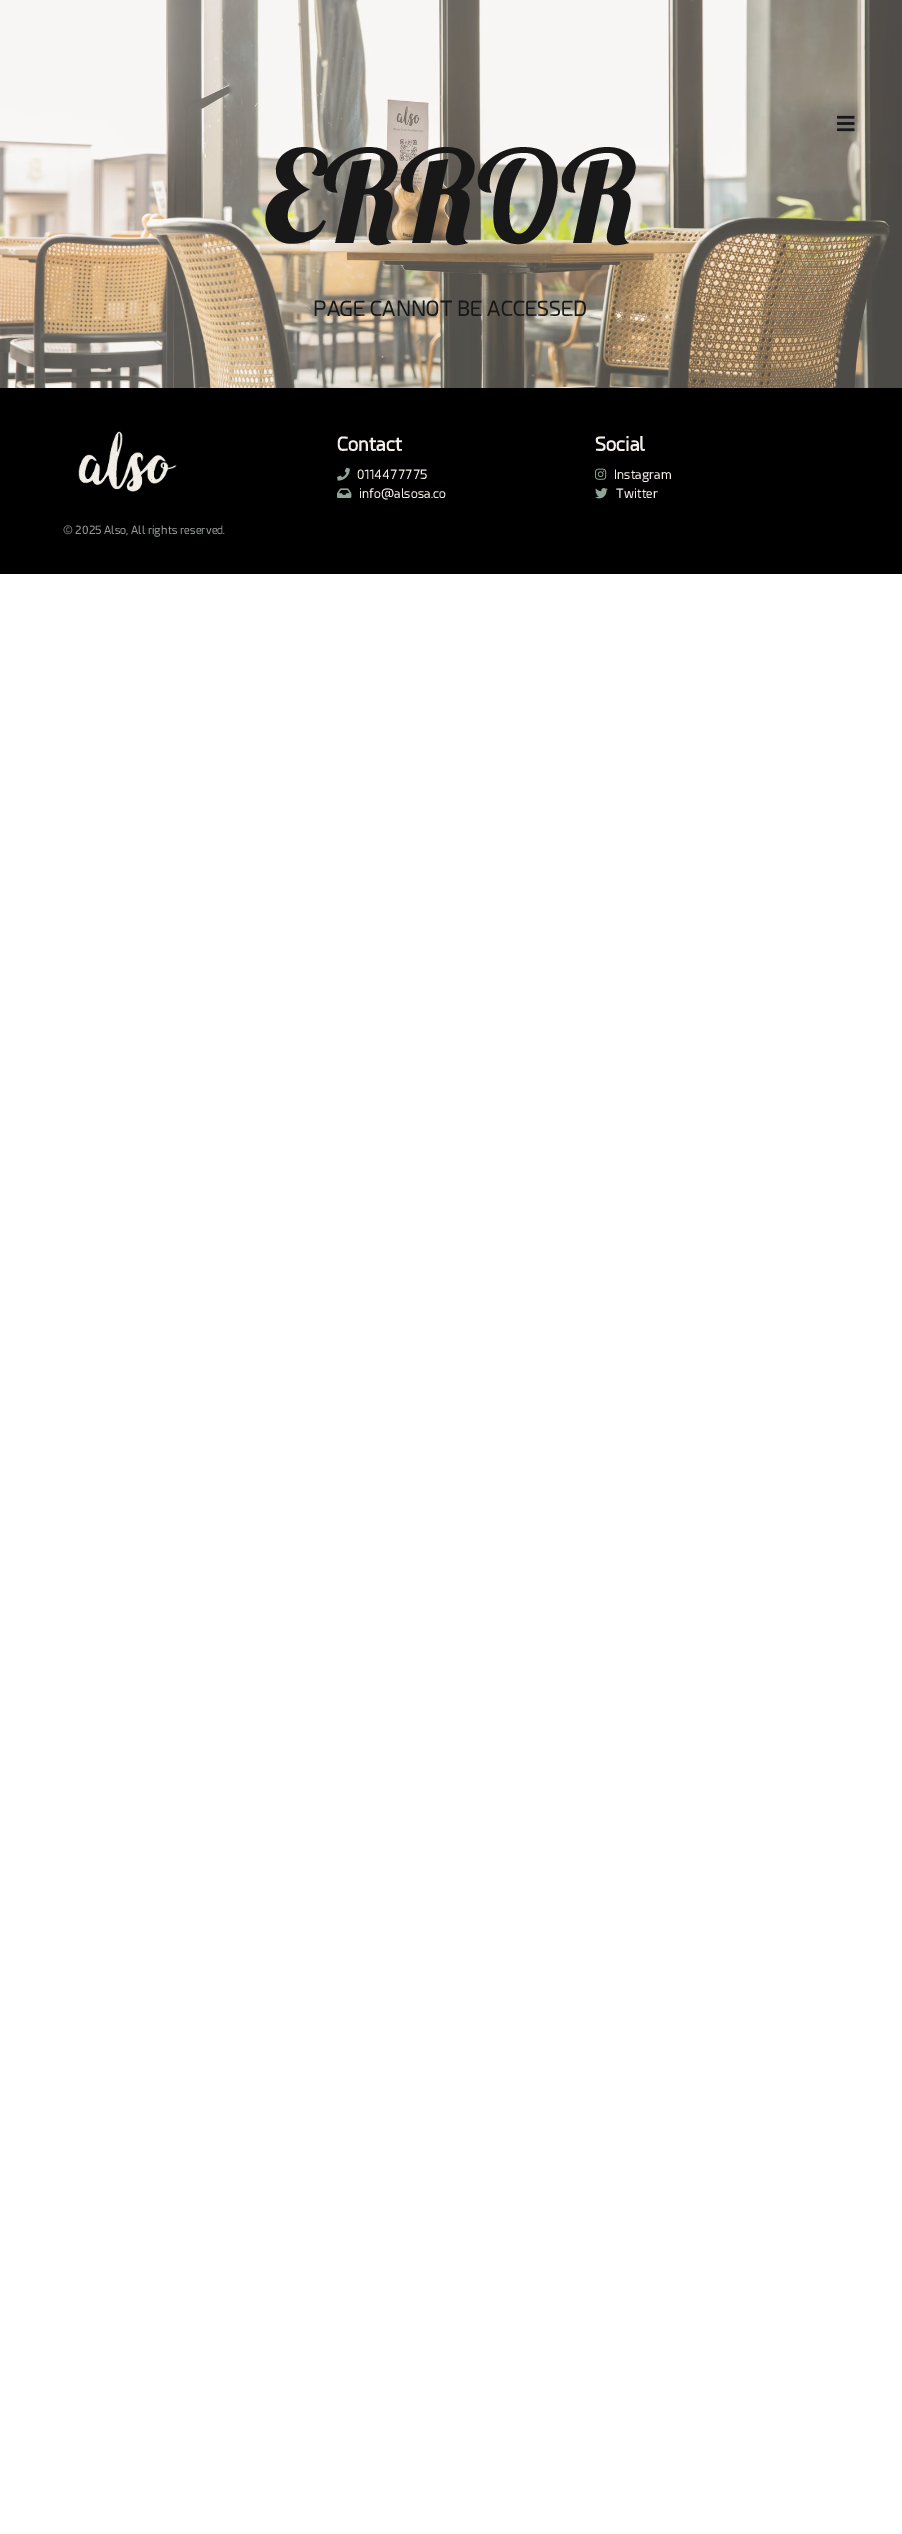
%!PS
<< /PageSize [902 2534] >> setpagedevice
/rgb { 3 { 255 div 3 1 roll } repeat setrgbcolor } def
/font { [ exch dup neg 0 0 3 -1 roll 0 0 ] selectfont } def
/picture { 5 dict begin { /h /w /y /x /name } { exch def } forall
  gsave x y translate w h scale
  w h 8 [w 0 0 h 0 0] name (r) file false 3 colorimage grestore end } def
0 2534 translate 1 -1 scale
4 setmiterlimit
255 255 255 rgb
0 0 902 2534 rectfill
(img/2.rgb) 0 0 902 388 picture
(img/1.rgb) 837 115 18 17 picture
0 0 0 rgb
0 388 902 186 rectfill
(img/3.rgb) 78 431 99 61 picture
(img/4.rgb) 337 467 13 14 picture
(img/5.rgb) 337 488 15 10 picture
(img/6.rgb) 595 468 12 12 picture
(img/7.rgb) 595 488 13 11 picture
/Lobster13-Regular 128 font
24 24 24 rgb
264 243 moveto (ERROR) show
/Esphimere-Regular 20.75 font
313 316 moveto (PAGE CANNOT BE ACCESSED) show
/Esphimere-Bold 19 font
243 238 231 rgb
337 451 moveto (Contact) show
/Esphimere-Regular 12.75 font
357 479 moveto (0114477775) show
359 498 moveto (info@alsosa.co) show
/Esphimere-Bold 19 font
595 451 moveto (Social) show
/Esphimere-Regular 12.75 font
614 479 moveto (Instagram) show
616 498 moveto (Twitter) show
/Esphimere-Regular 11.25 font
147 154 151 rgb
63 534 moveto (© 2025 Also, All rights reserved.) show
showpage
